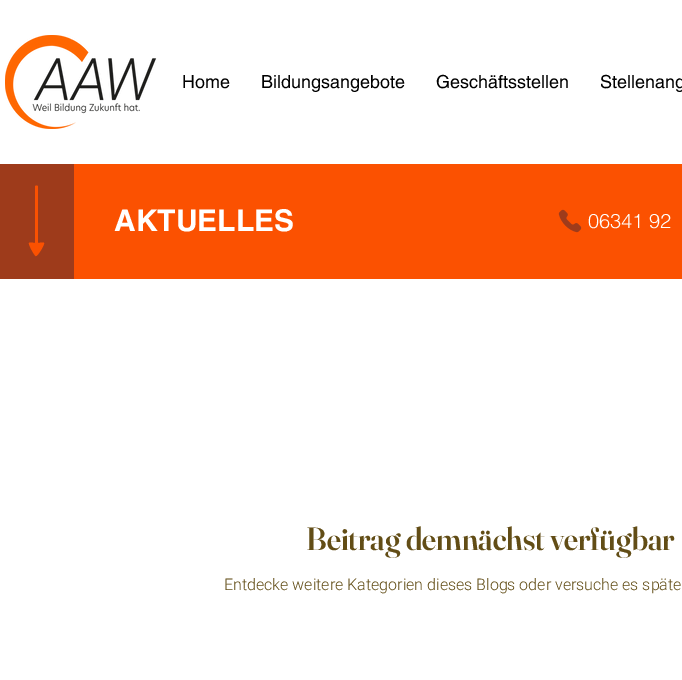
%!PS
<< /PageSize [682 680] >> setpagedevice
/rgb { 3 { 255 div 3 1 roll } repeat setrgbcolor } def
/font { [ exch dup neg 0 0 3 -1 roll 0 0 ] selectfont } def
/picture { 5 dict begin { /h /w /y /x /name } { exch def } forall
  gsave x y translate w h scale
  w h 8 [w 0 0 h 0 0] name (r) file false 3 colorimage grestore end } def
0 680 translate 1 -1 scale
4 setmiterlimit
255 255 255 rgb
0 0 682 680 rectfill
(img/1.rgb) 5 35 152 94 picture
158 59 27 rgb
0 164 74 115 rectfill
251 81 1 rgb
35 187 moveto 35 243 lineto 34 243 30 242 29 243 curveto 28 244 35 257 36 256 curveto 38 256 45 244 44 243 curveto 44 242 39 243 38 243 curveto 38 187 lineto 38 185 35 185 35 187 curveto closepath fill
74 164 608 115 rectfill
(img/2.rgb) 558 209 24 24 picture
/helvetica-Regular 18 font
0 0 0 rgb
[
  [(Home) 182 88]
  [(Bildungsangebote) 261 88]
  [(Geschäftsstellen) 436 88]
  [(Stellenang) 600 88]
] { aload pop moveto show } forall
/helvetica-Bold 30 font
255 255 255 rgb
114 231 moveto (AKTUELLES) show
/helvetica-Light 20 font
588 228 moveto (06341 92) show
/Fraunces-SemiBold 32 font
98 77 22 rgb
306 550 moveto (Beitrag demnächst verfügbar) show
/Roboto-Light 16 font
224 590 moveto (Entdecke weitere Kategorien dieses Blogs oder versuche es späte) show
showpage
